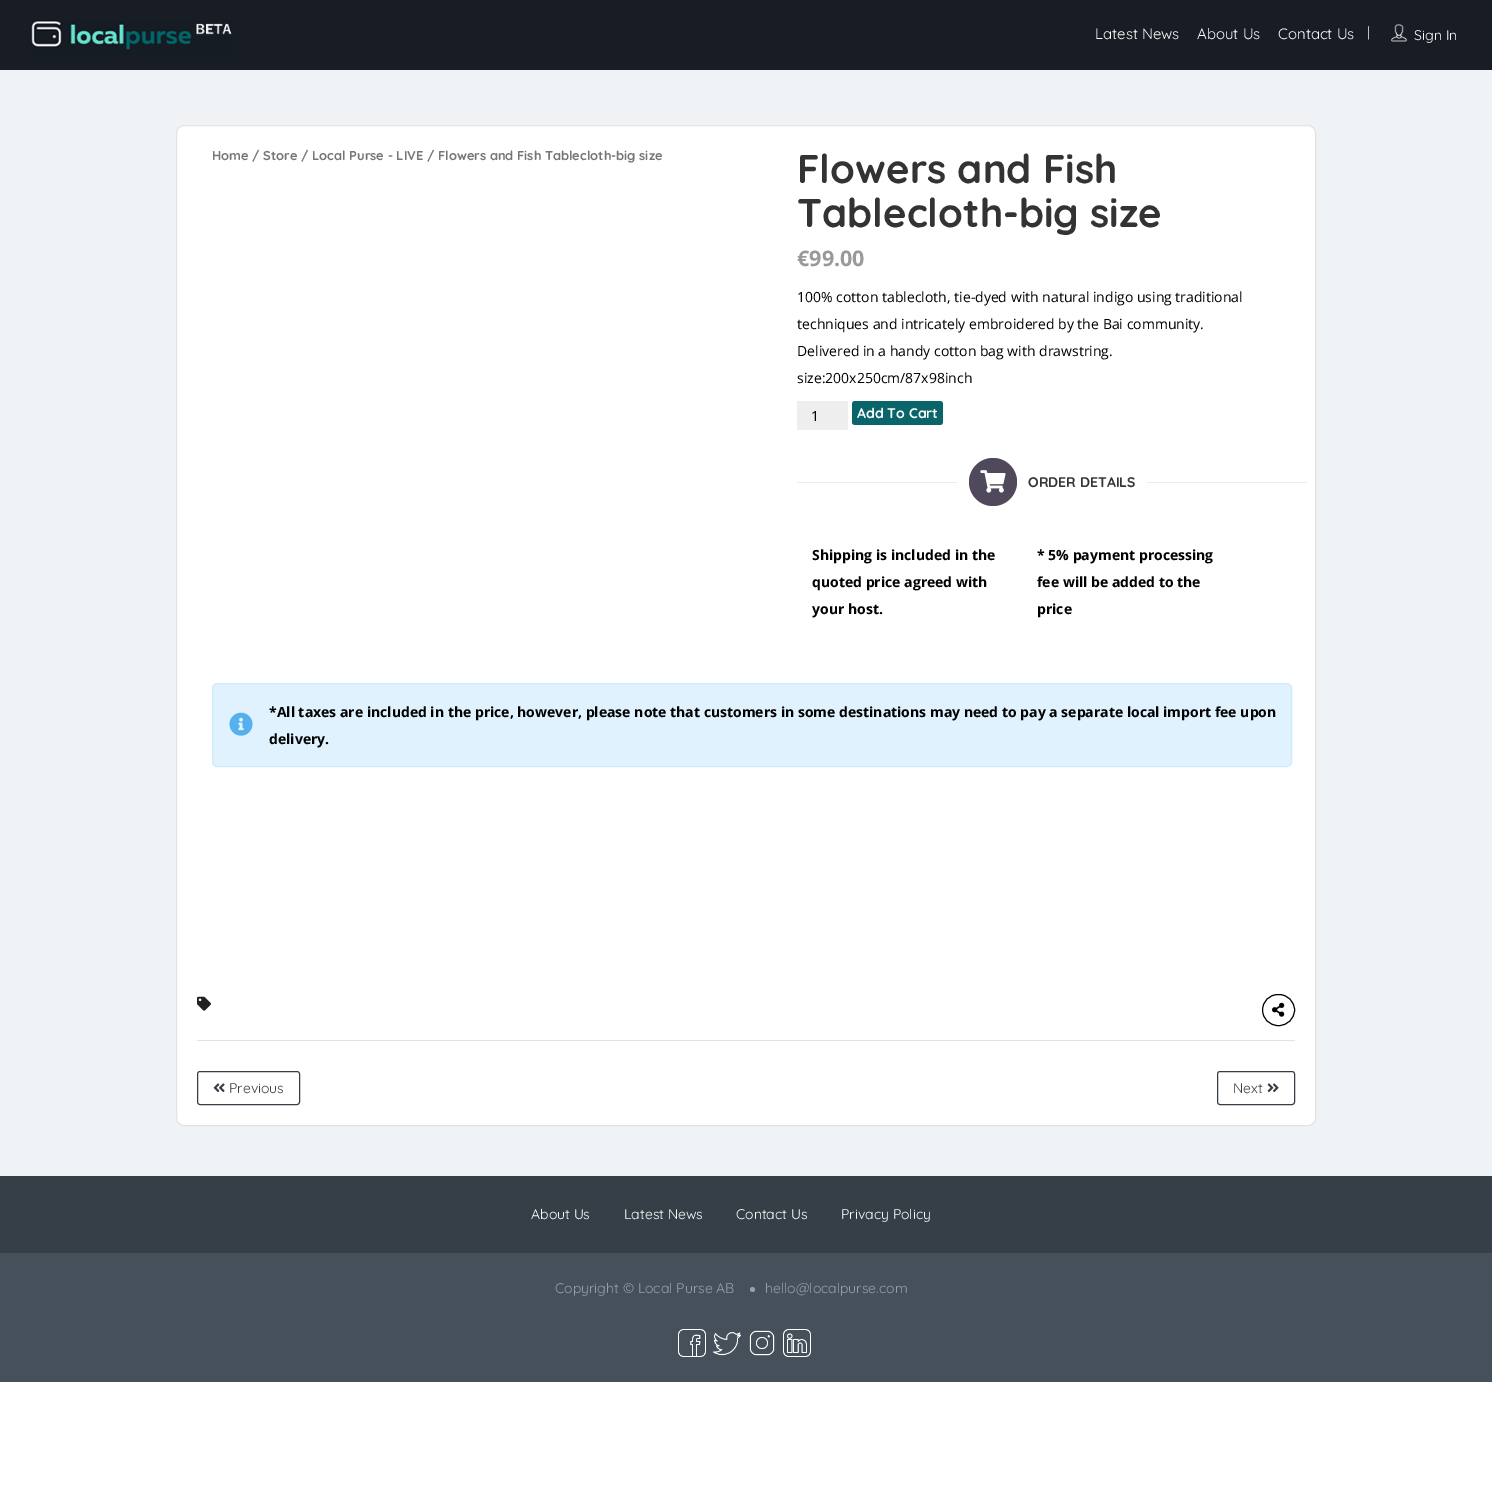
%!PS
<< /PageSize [1492 1506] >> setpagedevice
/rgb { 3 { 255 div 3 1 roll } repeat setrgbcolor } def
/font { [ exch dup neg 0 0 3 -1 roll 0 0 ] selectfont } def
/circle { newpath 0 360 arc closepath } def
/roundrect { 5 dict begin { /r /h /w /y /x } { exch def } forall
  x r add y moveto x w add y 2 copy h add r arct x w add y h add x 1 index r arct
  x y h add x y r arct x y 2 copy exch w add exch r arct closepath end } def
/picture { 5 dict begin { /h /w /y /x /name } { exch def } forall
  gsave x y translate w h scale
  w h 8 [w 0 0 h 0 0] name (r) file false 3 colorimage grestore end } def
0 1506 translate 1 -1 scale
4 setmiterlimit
255 255 255 rgb
0 0 1492 1506 rectfill
24 28 36 rgb
0 0 1492 70 rectfill
(img/1.rgb) 30 20 202 35 picture
(img/2.rgb) 1391 23 16 19 picture
239 243 246 rgb
0 70 1492 1106 rectfill
255 255 255 rgb
176.5 125.5 1139 1000 7.5 roundrect gsave fill grestore
227 227 227 rgb
stroke
238 238 238 rgb
797 401 51 29 rectfill
9 101 105 rgb
852 401 91 24 3 roundrect fill
235 235 235 rgb
797 482 160 1 rectfill
80 72 91 rgb
993 482 24 circle fill
(img/3.rgb) 980 470 26 23 picture
235 235 235 rgb
1147 482 160 1 rectfill
223 242 254 rgb
212.5 683.5 1079 83 4.5 roundrect gsave fill grestore
207 235 254 rgb
stroke
(img/4.rgb) 229 712 24 24 picture
227 227 227 rgb
197 1040 1098 1 rectfill
(img/5.rgb) 197 996 14 15 picture
0 0 0 rgb
1262.5 994.5 32 31 15.5 roundrect stroke
(img/6.rgb) 1272 1002 13 15 picture
54 63 72 rgb
197.5 1071.5 102 33 2.5 roundrect stroke
(img/7.rgb) 213 1083 12 10 picture
1217.5 1071.5 77 33 2.5 roundrect stroke
(img/8.rgb) 1267 1083 12 10 picture
69 80 91 rgb
0 1253 1492 129 rectfill
54 63 72 rgb
0 1176 1492 77 rectfill
150 160 169 rgb
752.5 1289.5 2.5 circle fill
(img/9.rgb) 678 1329 28 28 picture
(img/10.rgb) 713 1332 28 24 picture
(img/11.rgb) 749 1330 26 26 picture
(img/12.rgb) 783 1329 28 28 picture
/Quicksand-Regular 15 font
255 255 255 rgb
[
  [(Latest News) 1095 39]
  [(About Us) 1197 39]
  [(Contact Us) 1278 39]
] { aload pop moveto show } forall
/Quicksand-Regular 14 font
1367 37 moveto (|) show
1414 40 moveto (Sign In) show
/Quicksand-Bold 12.9 font
118 118 118 rgb
212 160 moveto (Home / Store / Local Purse - LIVE / Flowers and Fish Tablecloth-big size) show
/Quicksand-Bold 40 font
51 51 51 rgb
797 183 moveto (Flowers and Fish) show
797 227 moveto (Tablecloth-big size) show
/OpenSans-Bold 21.5 font
153 153 153 rgb
797 266 moveto (€99.00) show
/OpenSans-Regular 14 font
0 0 0 rgb
[
  [(100% cotton tablecloth, tie-dyed with natural indigo using traditional) 797 302]
  [(techniques and intricately embroidered by the Bai community.) 797 329]
  [(Delivered in a handy cotton bag with drawstring.) 797 356]
  [(size:200x250cm/87x98inch) 797 383]
  [(1) 811 421]
] { aload pop moveto show } forall
/Quicksand-Bold 14 font
255 255 255 rgb
857 418 moveto (Add To Cart) show
51 51 51 rgb
1028 487 moveto (ORDER DETAILS) show
/OpenSans-Bold 14 font
0 0 0 rgb
[
  [(Shipping is included in the) 812 560]
  [(quoted price agreed with) 812 587]
  [(your host.) 812 614]
  [(* 5% payment processing) 1037 560]
  [(fee will be added to the) 1037 587]
  [(price) 1037 614]
  [(*All taxes are included in the price, however, please note that customers in some destinations may need to pay a separate local import fee upon) 269 717]
  [(delivery.) 269 744]
] { aload pop moveto show } forall
/Quicksand-Regular 14 font
54 63 72 rgb
229 1093 moveto (Previous) show
1233 1093 moveto (Next) show
255 255 255 rgb
[
  [(About Us) 531 1219]
  [(Latest News) 624 1219]
  [(Contact Us) 736 1219]
  [(Privacy Policy) 841 1219]
] { aload pop moveto show } forall
150 160 169 rgb
555 1293 moveto (Copyright © Local Purse AB) show
765 1293 moveto (hello@localpurse.com) show
showpage
